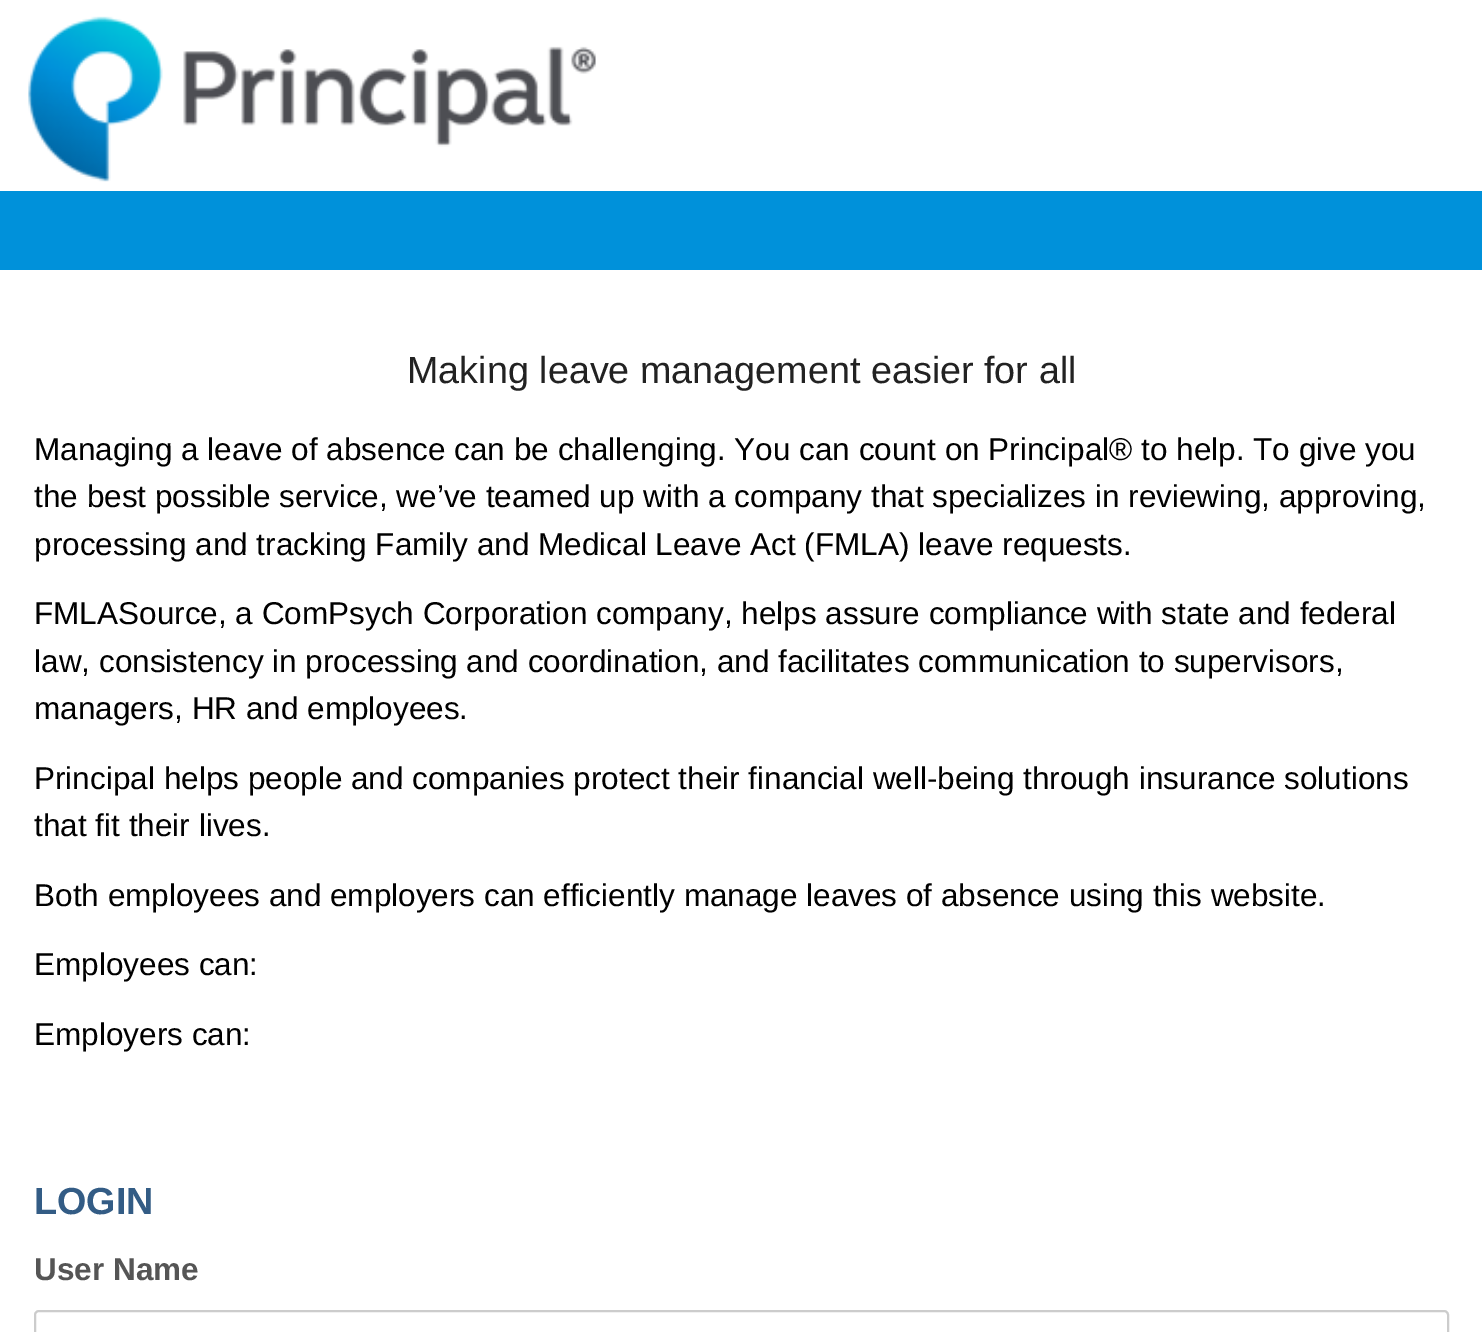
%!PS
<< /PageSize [1482 1332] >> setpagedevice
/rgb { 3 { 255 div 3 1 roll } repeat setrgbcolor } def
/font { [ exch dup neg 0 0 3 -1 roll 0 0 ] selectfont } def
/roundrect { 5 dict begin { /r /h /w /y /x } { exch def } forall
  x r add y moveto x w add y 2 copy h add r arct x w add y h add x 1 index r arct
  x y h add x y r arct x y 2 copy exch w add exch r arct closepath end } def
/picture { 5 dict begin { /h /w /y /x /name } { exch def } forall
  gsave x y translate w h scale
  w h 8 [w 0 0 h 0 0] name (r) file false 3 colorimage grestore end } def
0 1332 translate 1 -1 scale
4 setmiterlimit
255 255 255 rgb
0 0 1482 1332 rectfill
(img/1.rgb) 28 16 568 166 picture
0 145 218 rgb
0 191 1482 79 rectfill
204 204 204 rgb
2 setlinewidth
35 1311 1413 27 4 roundrect stroke
/LiberationSans-Regular 37.75 font
34 34 34 rgb
407 383 moveto (Making leave management easier for all) show
/LiberationSans-Regular 31.5 font
0 0 0 rgb
[
  [(Managing a leave of absence can be challenging. You can count on Principal® to help. To give you) 34 460]
  [(the best possible service, we’ve teamed up with a company that specializes in reviewing, approving,) 34 507]
  [(processing and tracking Family and Medical Leave Act \(FMLA\) leave requests.) 34 555]
  [(FMLASource, a ComPsych Corporation company, helps assure compliance with state and federal) 34 624]
  [(law, consistency in processing and coordination, and facilitates communication to supervisors,) 34 672]
  [(managers, HR and employees.) 34 719]
  [(Principal helps people and companies protect their financial well-being through insurance solutions) 34 789]
  [(that fit their lives.) 34 836]
  [(Both employees and employers can efficiently manage leaves of absence using this website.) 34 906]
  [(Employees can:) 34 975]
  [(Employers can:) 34 1045]
] { aload pop moveto show } forall
/LiberationSans-Bold 37.75 font
51 92 133 rgb
34 1214 moveto (LOGIN) show
/LiberationSans-Bold 31.5 font
85 85 85 rgb
34 1280 moveto (User Name) show
showpage
